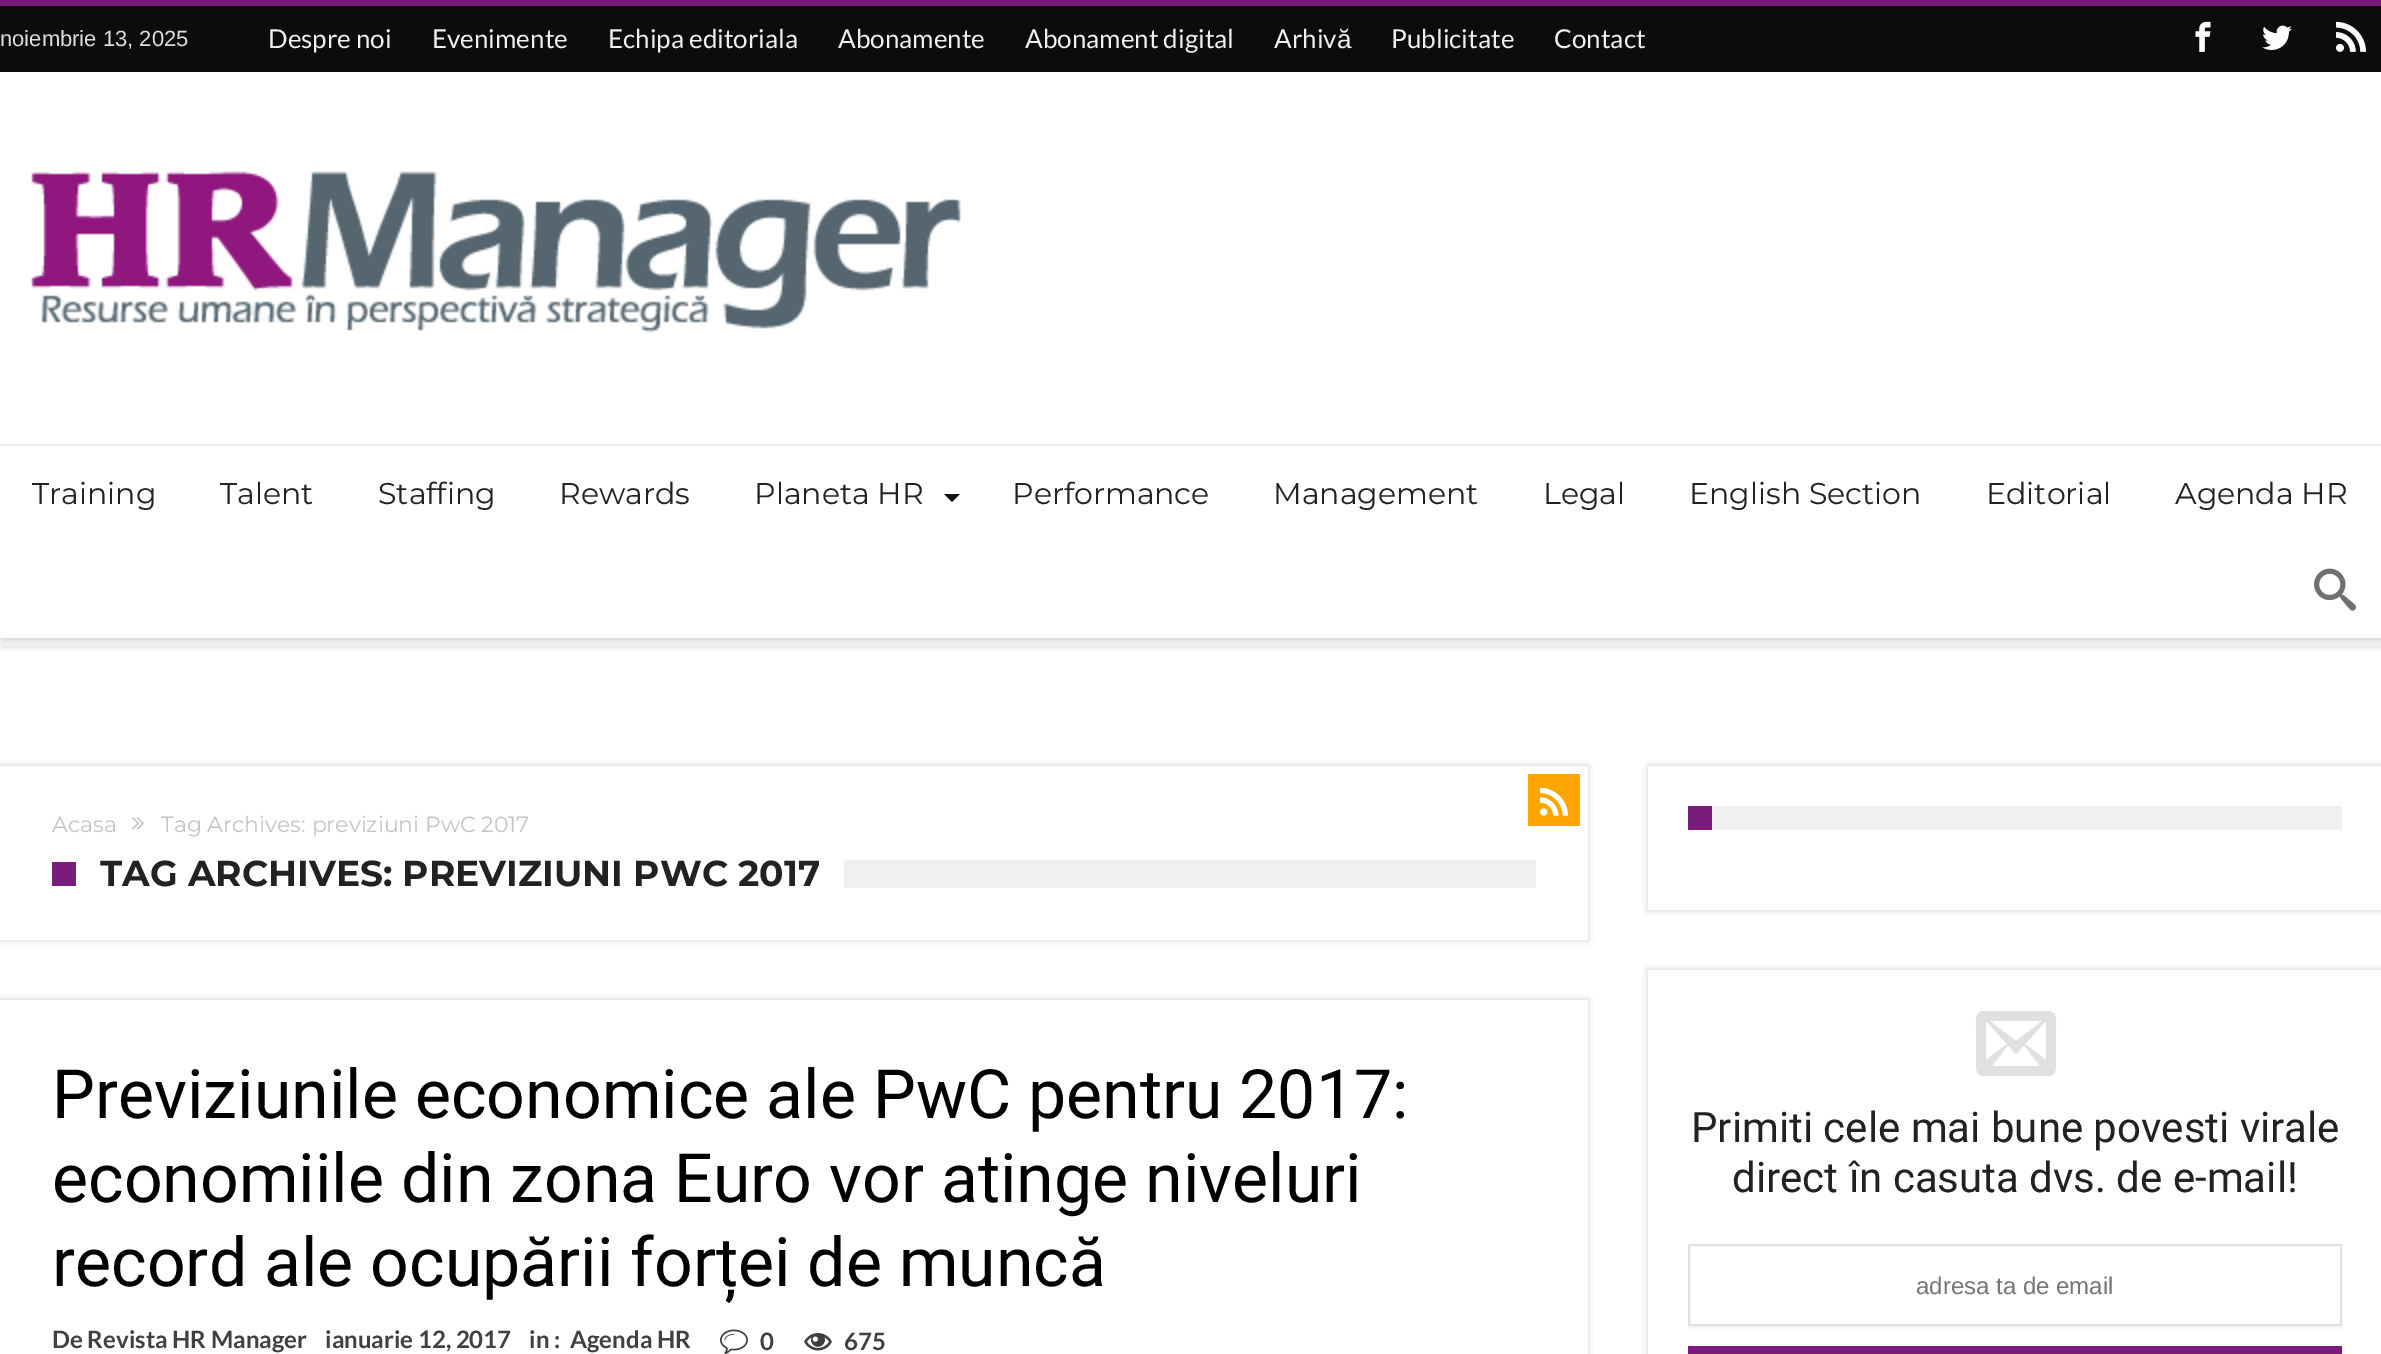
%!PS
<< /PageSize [2381 1354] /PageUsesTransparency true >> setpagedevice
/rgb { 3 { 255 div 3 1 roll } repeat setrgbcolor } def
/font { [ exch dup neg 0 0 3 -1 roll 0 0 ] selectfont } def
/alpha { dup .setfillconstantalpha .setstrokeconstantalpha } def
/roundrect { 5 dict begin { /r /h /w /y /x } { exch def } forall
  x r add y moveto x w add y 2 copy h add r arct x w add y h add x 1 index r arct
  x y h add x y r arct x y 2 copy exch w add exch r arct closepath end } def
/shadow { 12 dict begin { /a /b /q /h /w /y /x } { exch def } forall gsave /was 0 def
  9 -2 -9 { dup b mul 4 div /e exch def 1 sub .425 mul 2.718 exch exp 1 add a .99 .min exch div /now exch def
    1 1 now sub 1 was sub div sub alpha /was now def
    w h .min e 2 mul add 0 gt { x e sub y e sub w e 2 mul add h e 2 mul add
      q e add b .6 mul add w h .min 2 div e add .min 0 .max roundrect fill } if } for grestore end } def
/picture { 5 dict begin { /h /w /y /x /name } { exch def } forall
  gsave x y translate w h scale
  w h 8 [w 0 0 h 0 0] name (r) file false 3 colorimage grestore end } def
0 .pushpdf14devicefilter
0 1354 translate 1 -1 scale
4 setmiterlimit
255 255 255 rgb
0 0 2381 1354 rectfill
122 29 122 rgb
0 0 2381 6 rectfill
12 12 12 rgb
0 6 2381 66 rectfill
(img/1.rgb) 2195 21 16 31 picture
(img/2.rgb) 2262 25 30 25 picture
(img/3.rgb) 2336 21 30 31 picture
(img/4.rgb) 31 171 930 162 picture
0 0 0 rgb
2 446 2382 202 0 2 0.11 shadow
240 240 240 rgb
0 444 2381 202 rectfill
0 0 0 rgb
2 448 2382 192 0 2 0.11 shadow
255 255 255 rgb
0 446 2381 192 rectfill
17 17 17 rgb
944 494 moveto 960 494 lineto 952 502 lineto closepath fill
(img/5.rgb) 2314 568 42 43 picture
gsave
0 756 moveto 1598 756 lineto 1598 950 lineto 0 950 lineto closepath 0 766 moveto 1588 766 lineto 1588 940 lineto 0 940 lineto closepath eoclip newpath
0 0 0 rgb
0 766 1588 174 0 3 0.21 shadow
grestore
255 165 0 rgb
1528 774 52 52 rectfill
(img/6.rgb) 1540 787 28 29 picture
(img/7.rgb) 132 817 12 13 picture
240 240 240 rgb
844 860 692 28 rectfill
122 29 122 rgb
52 862 24 24 rectfill
gsave
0 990 moveto 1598 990 lineto 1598 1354 lineto 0 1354 lineto closepath 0 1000 moveto 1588 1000 lineto 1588 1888 lineto 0 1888 lineto closepath eoclip newpath
0 0 0 rgb
0 1000 1588 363 0 3 0.21 shadow
grestore
(img/8.rgb) 720 1329 28 25 picture
(img/9.rgb) 804 1333 28 18 picture
gsave
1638 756 moveto 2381 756 lineto 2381 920 lineto 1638 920 lineto closepath 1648 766 moveto 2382 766 lineto 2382 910 lineto 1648 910 lineto closepath eoclip newpath
0 0 0 rgb
1648 766 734 144 0 3 0.21 shadow
grestore
240 240 240 rgb
1712 806 630 24 rectfill
122 29 122 rgb
1688 806 24 24 rectfill
gsave
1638 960 moveto 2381 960 lineto 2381 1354 lineto 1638 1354 lineto closepath 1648 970 moveto 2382 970 lineto 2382 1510 lineto 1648 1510 lineto closepath eoclip newpath
0 0 0 rgb
1648 970 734 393 0 3 0.21 shadow
grestore
224 224 224 rgb
2048 1011 moveto 1982 1011 lineto 1975 1013 1976 1021 1976 1027 curveto 1976 1060 lineto 1976 1077 1977 1076 1994 1076 curveto 2038 1076 lineto 2055 1076 2056 1077 2056 1060 curveto 2056 1027 lineto 2056 1021 2057 1011 2048 1011 curveto closepath 2007 1044 moveto 1986 1060 lineto 1986 1021 lineto closepath 1990 1021 moveto 2042 1021 lineto 2016 1041 lineto closepath 2008 1045 moveto 2016 1054 lineto 2024 1045 lineto 2040 1066 lineto 1992 1066 lineto closepath 2025 1044 moveto 2046 1021 lineto 2046 1060 lineto closepath fill
247 247 247 rgb
1688 1326 654 4 rectfill
224 224 224 rgb
2 setlinewidth
1689 1245 652 80 rectstroke
122 29 122 rgb
1688 1346 654 8 rectfill
/LiberationSans-Regular 22 font
221 221 221 rgb
0 46 moveto (noiembrie 13, 2025) show
/Lato-Regular 26 font
240 240 240 rgb
[
  [(Despre noi) 268 48]
  [(Evenimente) 432 48]
  [(Echipa editoriala) 608 48]
  [(Abonamente) 838 48]
  [(Abonament digital) 1025 48]
  [(Arhiv) 1274 48]
] { aload pop moveto show } forall
/LiberationSans-Regular 26 font
1337 48 moveto (ă) show
/Lato-Regular 26 font
1391 48 moveto (Publicitate) show
1554 48 moveto (Contact) show
/Montserrat-Regular 30 font
34 34 34 rgb
[
  [(Training) 32 504]
  [(Talent) 220 504]
  [(Staffing) 378 504]
  [(Rewards) 559 504]
  [(Planeta HR) 754 504]
  [(Performance) 1012 504]
  [(Management) 1273 504]
  [(Legal) 1543 504]
  [(English Section) 1689 504]
  [(Editorial) 1986 504]
  [(Agenda HR) 2175 504]
] { aload pop moveto show } forall
/Montserrat-Regular 22 font
195 195 195 rgb
52 832 moveto (Acasa) show
161 832 moveto (Tag Archives: previziuni PwC 2017) show
/Montserrat-Bold 36 font
34 34 34 rgb
100 886 moveto (TAG ARCHIVES: PREVIZIUNI PWC 2017) show
/Roboto-Regular 68 font
0 0 0 rgb
[
  [(Previziunile economice ale PwC pentru 2017:) 52 1118]
  [(economiile din zona Euro vor atinge niveluri) 52 1202]
  [(record ale ocupării forței de muncă) 52 1286]
] { aload pop moveto show } forall
/Lato-Bold 24 font
64 64 64 rgb
[
  [(De Revista HR Manager) 52 1348]
  [(ianuarie 12, 2017) 325 1348]
  [(in :) 529 1348]
  [(Agenda HR) 570 1348]
  [(0) 760 1350]
  [(675) 844 1350]
] { aload pop moveto show } forall
/Roboto-Regular 42 font
34 34 34 rgb
1691 1142 moveto (Primiti cele mai bune povesti virale) show
1732 1192 moveto (direct în casuta dvs. de e-mail!) show
/LiberationSans-Regular 24 font
117 117 117 rgb
1916 1294 moveto (adresa ta de email) show
.poppdf14devicefilter showpage
